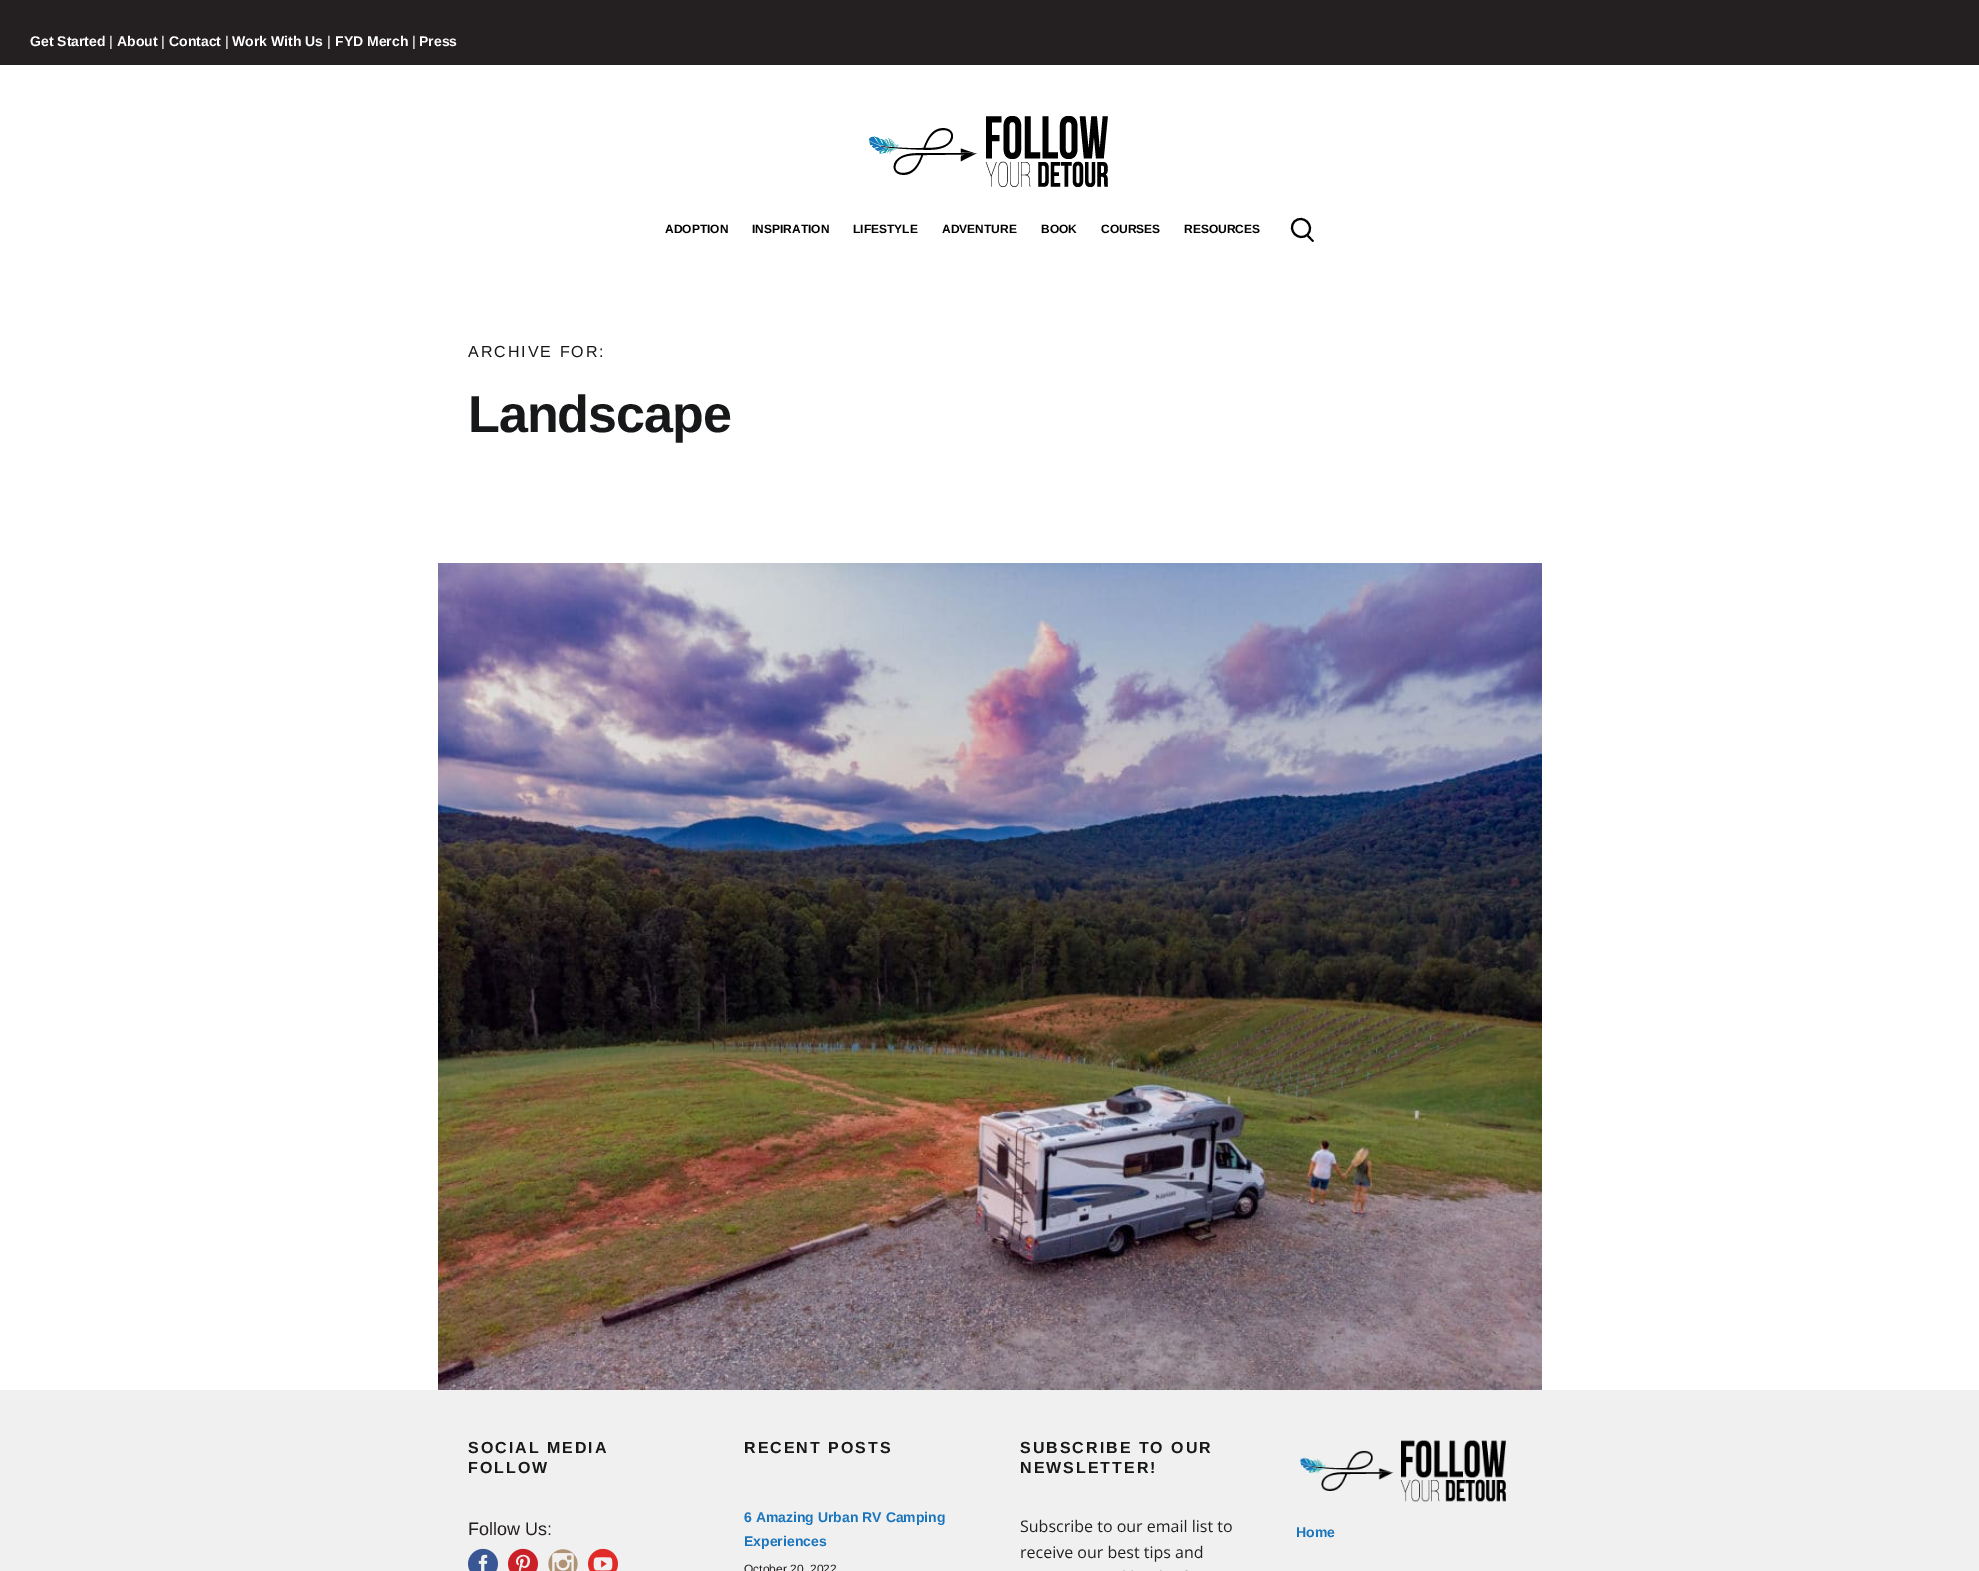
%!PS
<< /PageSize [1979 1571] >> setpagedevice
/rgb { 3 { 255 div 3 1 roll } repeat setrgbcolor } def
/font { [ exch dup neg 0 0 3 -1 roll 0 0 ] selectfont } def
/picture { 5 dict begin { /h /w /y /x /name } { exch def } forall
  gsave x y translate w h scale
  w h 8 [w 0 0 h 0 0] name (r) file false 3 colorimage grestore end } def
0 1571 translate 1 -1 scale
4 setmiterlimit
255 255 255 rgb
0 0 1979 1571 rectfill
36 32 33 rgb
0 0 1979 65 rectfill
(img/1.rgb) 868 116 240 71 picture
0 0 0 rgb
2 setlinewidth
1294.5 221.5 moveto 1303 213.5 1315.5 226 1307.5 234.5 curveto 1299 242.5 1286.5 230 1294.5 221.5 curveto stroke
1307 236.5 moveto 1308.5 235 lineto 1314 241 lineto 1312.5 242 lineto closepath fill
(img/2.rgb) 438 563 1104 827 picture
240 240 240 rgb
0 1390 1979 181 rectfill
(img/3.rgb) 468 1548 30 23 picture
(img/4.rgb) 508 1548 30 23 picture
(img/5.rgb) 548 1549 30 22 picture
(img/6.rgb) 588 1548 30 23 picture
(img/7.rgb) 1020 1519 212 52 picture
(img/8.rgb) 1299 1440 207 62 picture
/Arimo-Bold 14 font
255 255 255 rgb
30 46 moveto (Get Started) show
/Arimo-Regular 14 font
109 46 moveto (|) show
/Arimo-Bold 14 font
117 46 moveto (About) show
/Arimo-Regular 14 font
161 46 moveto (|) show
/Arimo-Bold 14 font
169 46 moveto (Contact) show
/Arimo-Regular 14 font
225 46 moveto (|) show
/Arimo-Bold 14 font
232 46 moveto (Work With Us) show
/Arimo-Regular 14 font
327 46 moveto (|) show
/Arimo-Bold 14 font
335 46 moveto (FYD Merch) show
/Arimo-Regular 14 font
412 46 moveto (|) show
/Arimo-Bold 14 font
419 46 moveto (Press) show
/Arimo-Bold 12 font
0 0 0 rgb
[
  [(ADOPTION) 665 233]
  [(INSPIRATION) 752 233]
  [(LIFESTYLE) 853 233]
  [(ADVENTURE) 942 233]
  [(BOOK) 1041 233]
  [(COURSES) 1101 233]
  [(RESOURCES) 1184 233]
] { aload pop moveto show } forall
/Arimo-Regular 16 font
23 24 25 rgb
468 357 moveto 2 0 (ARCHIVE FOR:) ashow
/Arimo-Bold 52 font
468 432 moveto -1 0 (Landscape) ashow
/Arimo-Bold 16 font
468 1453 moveto 2 0 (SOCIAL MEDIA) ashow
468 1473 moveto 2 0 (FOLLOW) ashow
/Arimo-Regular 18 font
35 31 32 rgb
468 1535 moveto (Follow Us:) show
/Arimo-Bold 16 font
23 24 25 rgb
744 1453 moveto 2 0 (RECENT POSTS) ashow
/Arimo-Bold 14 font
27 117 188 rgb
744 1522 moveto (6 Amazing Urban RV Camping) show
744 1546 moveto (Experiences) show
/Arimo-Regular 12 font
35 31 32 rgb
744 1573 moveto (October 20, 2022) show
/Arimo-Bold 16 font
23 24 25 rgb
1020 1453 moveto 2 0 (SUBSCRIBE TO OUR) ashow
1020 1473 moveto 2 0 (NEWSLETTER!) ashow
/Arimo-Bold 14 font
27 117 188 rgb
1296 1537 moveto (Home) show
showpage
